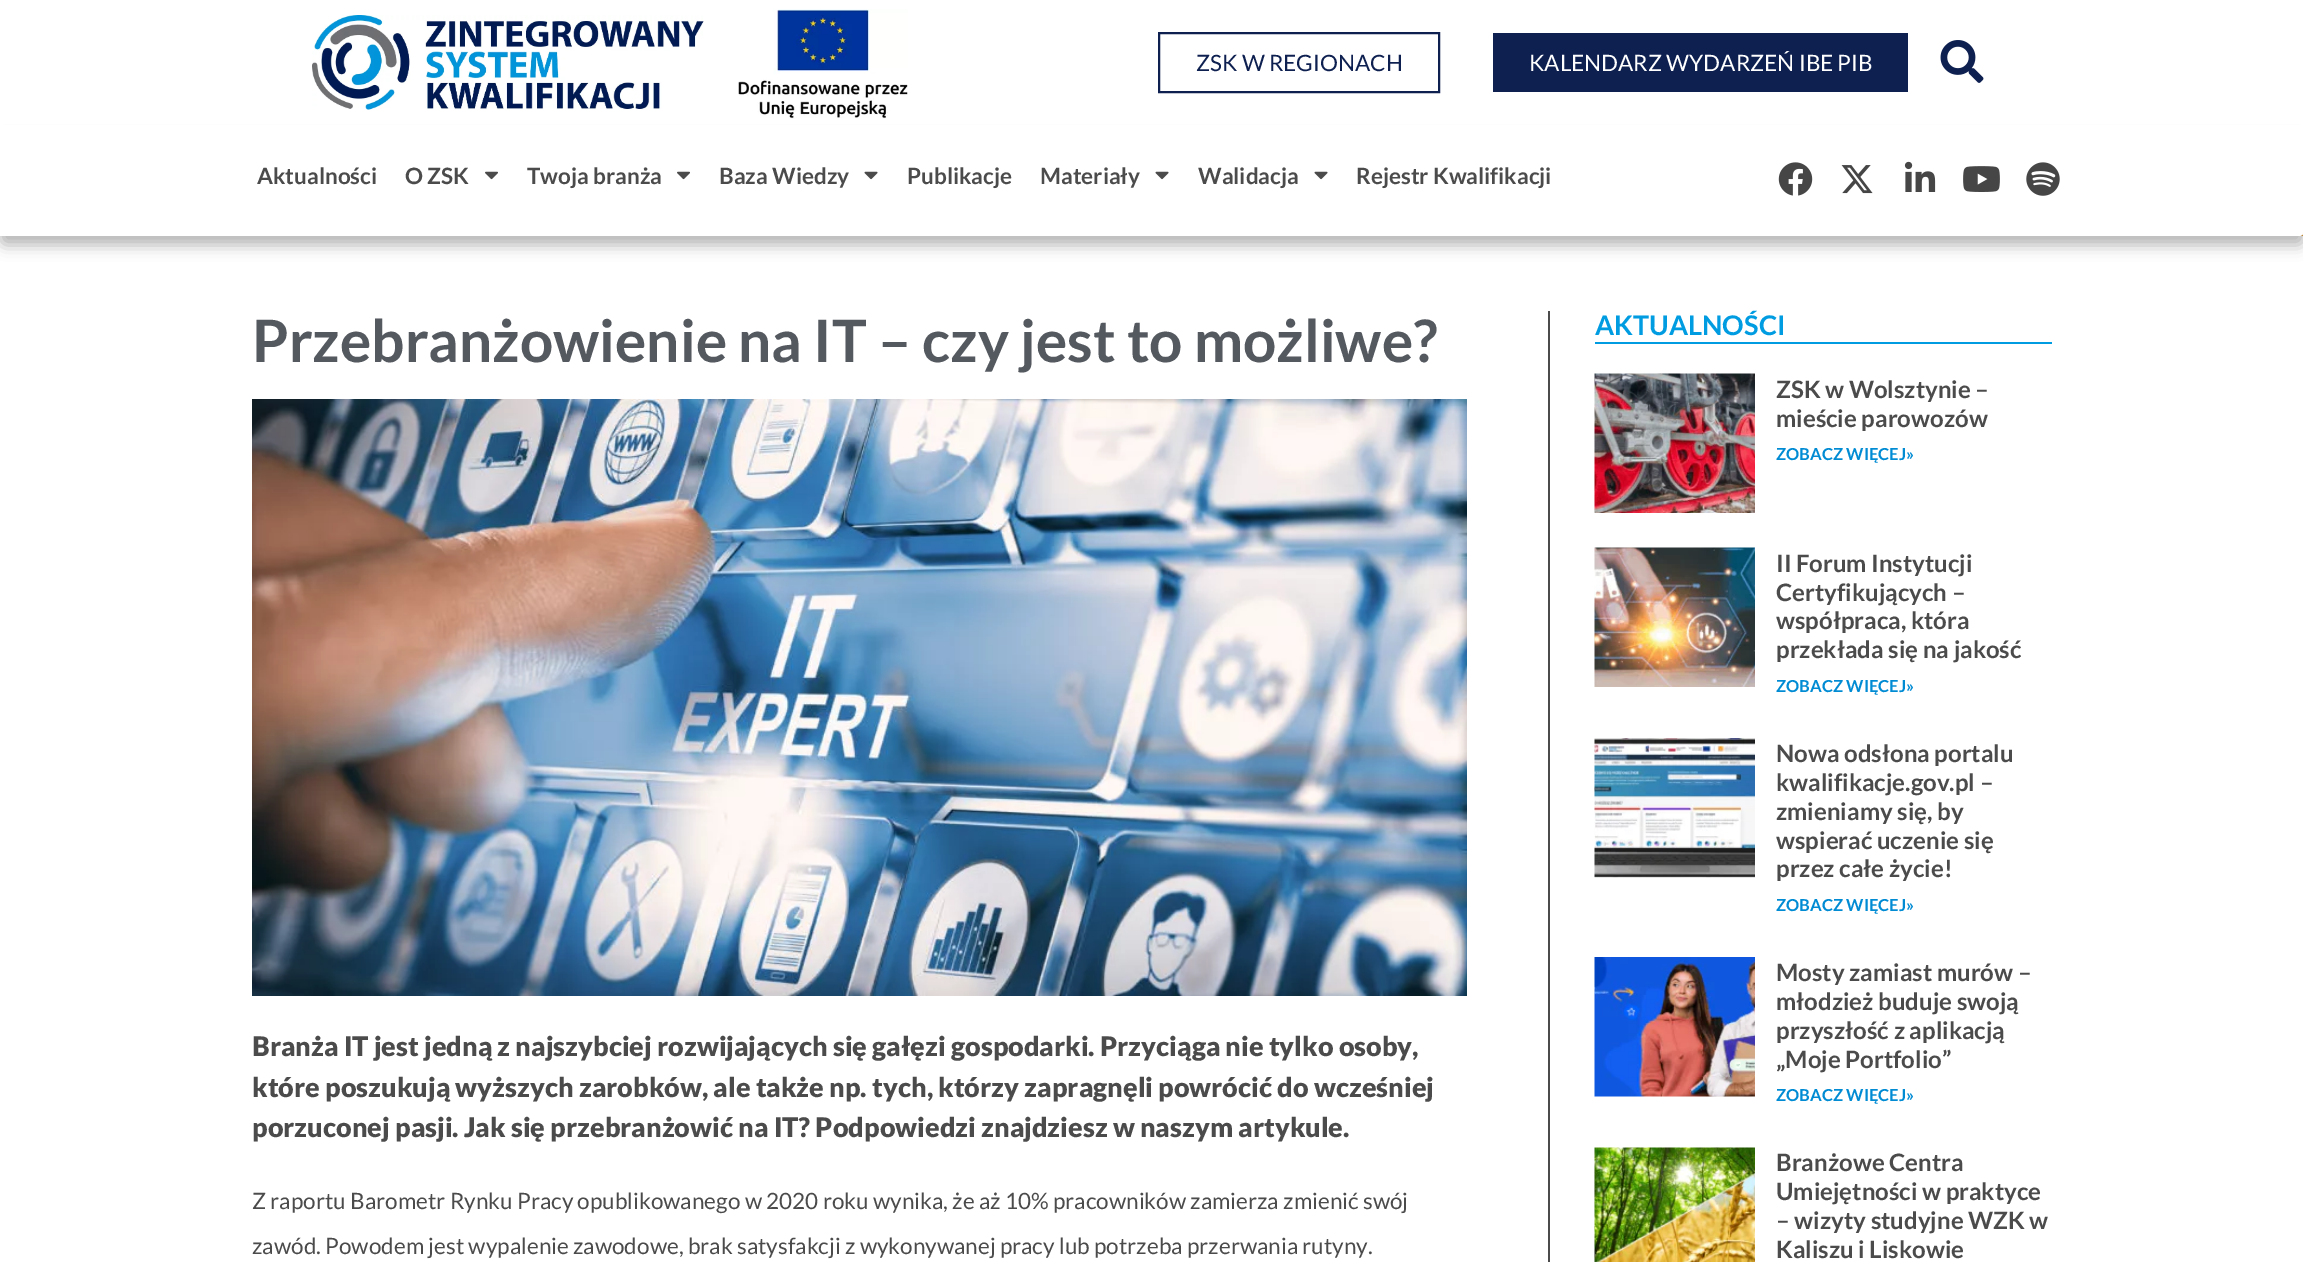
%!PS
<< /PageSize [2303 1262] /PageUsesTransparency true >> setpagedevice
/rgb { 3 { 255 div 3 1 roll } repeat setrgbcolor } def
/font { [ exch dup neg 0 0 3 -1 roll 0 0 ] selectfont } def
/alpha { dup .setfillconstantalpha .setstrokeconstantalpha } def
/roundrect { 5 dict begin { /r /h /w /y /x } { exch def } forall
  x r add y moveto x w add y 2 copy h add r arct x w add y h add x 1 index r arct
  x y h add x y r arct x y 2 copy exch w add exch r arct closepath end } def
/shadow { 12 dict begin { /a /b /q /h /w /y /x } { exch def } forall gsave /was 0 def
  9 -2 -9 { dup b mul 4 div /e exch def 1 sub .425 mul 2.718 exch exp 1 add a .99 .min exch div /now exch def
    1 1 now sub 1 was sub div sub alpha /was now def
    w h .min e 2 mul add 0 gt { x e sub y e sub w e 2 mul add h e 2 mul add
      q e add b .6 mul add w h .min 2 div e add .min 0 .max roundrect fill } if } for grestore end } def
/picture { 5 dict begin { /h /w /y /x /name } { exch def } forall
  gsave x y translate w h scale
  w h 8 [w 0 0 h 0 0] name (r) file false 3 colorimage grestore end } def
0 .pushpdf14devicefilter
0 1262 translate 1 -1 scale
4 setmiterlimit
255 255 255 rgb
0 0 2303 1262 rectfill
221 153 51 rgb
2299 234 4 2 rectfill
(img/1.rgb) 312 15 392 95 picture
0 0 0 rgb
0 141 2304 104 5 7.5 0.28 shadow
(img/2.rgb) 738 9 170 110 picture
14 32 80 rgb
2 setlinewidth
1159 33 280 59 rectstroke
1493 33 415 59 rectfill
(img/3.rgb) 1940 40 44 43 picture
255 255 255 rgb
0 132 moveto 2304 132 lineto 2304 231 lineto 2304 234 2302 236 2299 236 curveto 0 236 lineto closepath fill
0 125 moveto 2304 125 lineto 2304 228 lineto 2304 231 2302 233 2299 233 curveto 0 233 lineto closepath fill
(img/4.rgb) 485 171 13 9 picture
(img/4.rgb) 677 171 13 9 picture
(img/5.rgb) 864 171 14 9 picture
(img/5.rgb) 1155 171 14 9 picture
(img/5.rgb) 1314 171 14 9 picture
(img/6.rgb) 1778 162 35 34 picture
(img/7.rgb) 1841 165 32 29 picture
(img/8.rgb) 1904 161 32 31 picture
(img/9.rgb) 1963 166 37 26 picture
(img/10.rgb) 2026 162 34 34 picture
(img/11.rgb) 252 399 1215 597 picture
75 75 75 rgb
1548 311 2 951 rectfill
0 156 225 rgb
1595 342 457 2 rectfill
(img/12.rgb) 1594 373 161 140 picture
(img/13.rgb) 1594 547 161 140 picture
(img/14.rgb) 1594 738 161 140 picture
(img/15.rgb) 1594 957 161 140 picture
(img/16.rgb) 1594 1147 161 115 picture
/Lato-Regular 22.5 font
14 32 80 rgb
1196 71 moveto (ZSK W REGIONACH) show
255 255 255 rgb
1529 71 moveto (KALENDARZ WYDARZEŃ IBE PIB) show
/Lato-Bold 22.5 font
75 75 75 rgb
[
  [(Aktualności) 257 184]
  [(O ZSK) 405 184]
  [(Twoja branża) 527 184]
  [(Baza Wiedzy) 719 184]
  [(Publikacje) 907 184]
  [(Materiały) 1040 184]
  [(Walidacja) 1198 184]
  [(Rejestr Kwalifikacji) 1356 184]
] { aload pop moveto show } forall
/Lato-Bold 58.5 font
84 89 95 rgb
252 362 moveto (Przebranżowienie na IT – czy jest to możliwe?) show
/Lato-Black 27 font
75 75 75 rgb
[
  [(Branża IT jest jedną z najszybciej rozwijających się gałęzi gospodarki. Przyciąga nie tylko osoby,) 252 1056]
  [(które poszukują wyższych zarobków, ale także np. tych, którzy zapragnęli powrócić do wcześniej) 252 1097]
  [(porzuconej pasji. Jak się przebranżowić na IT? Podpowiedzi znajdziesz w naszym artykule.) 252 1137]
] { aload pop moveto show } forall
/Lato-Regular 22.5 font
252 1209 moveto (Z raportu Barometr Rynku Pracy opublikowanego w 2020 roku wynika, że aż 10% pracowników zamierza zmienić swój) show
252 1254 moveto (zawód. Powodem jest wypalenie zawodowe, brak satysfakcji z wykonywanej pracy lub potrzeba przerwania rutyny.) show
/Lato-Bold 27 font
0 156 225 rgb
1595 335 moveto (AKTUALNOŚCI) show
/Lato-Bold 24 font
75 75 75 rgb
1776 398 moveto (ZSK w Wolsztynie –) show
1776 427 moveto (mieście parowozów) show
/Lato-Bold 16.5 font
1 139 211 rgb
1776 460 moveto (ZOBACZ WIĘCEJ») show
/Lato-Bold 24 font
75 75 75 rgb
[
  [(II Forum Instytucji) 1776 572]
  [(Certyfikujących –) 1776 601]
  [(współpraca, która) 1776 629]
  [(przekłada się na jakość) 1776 658]
] { aload pop moveto show } forall
/Lato-Bold 16.5 font
1 139 211 rgb
1776 692 moveto (ZOBACZ WIĘCEJ») show
/Lato-Bold 24 font
75 75 75 rgb
[
  [(Nowa odsłona portalu) 1776 762]
  [(kwalifikacje.gov.pl –) 1776 791]
  [(zmieniamy się, by) 1776 820]
  [(wspierać uczenie się) 1776 849]
  [(przez całe życie!) 1776 877]
] { aload pop moveto show } forall
/Lato-Bold 16.5 font
1 139 211 rgb
1776 911 moveto (ZOBACZ WIĘCEJ») show
/Lato-Bold 24 font
75 75 75 rgb
[
  [(Mosty zamiast murów –) 1776 981]
  [(młodzież buduje swoją) 1776 1010]
  [(przyszłość z aplikacją) 1776 1039]
  [(„Moje Portfolio”) 1776 1068]
] { aload pop moveto show } forall
/Lato-Bold 16.5 font
1 139 211 rgb
1776 1101 moveto (ZOBACZ WIĘCEJ») show
/Lato-Bold 24 font
75 75 75 rgb
[
  [(Branżowe Centra) 1776 1171]
  [(Umiejętności w praktyce) 1776 1200]
  [(– wizyty studyjne WZK w) 1776 1229]
  [(Kaliszu i Liskowie) 1776 1258]
] { aload pop moveto show } forall
.poppdf14devicefilter showpage
